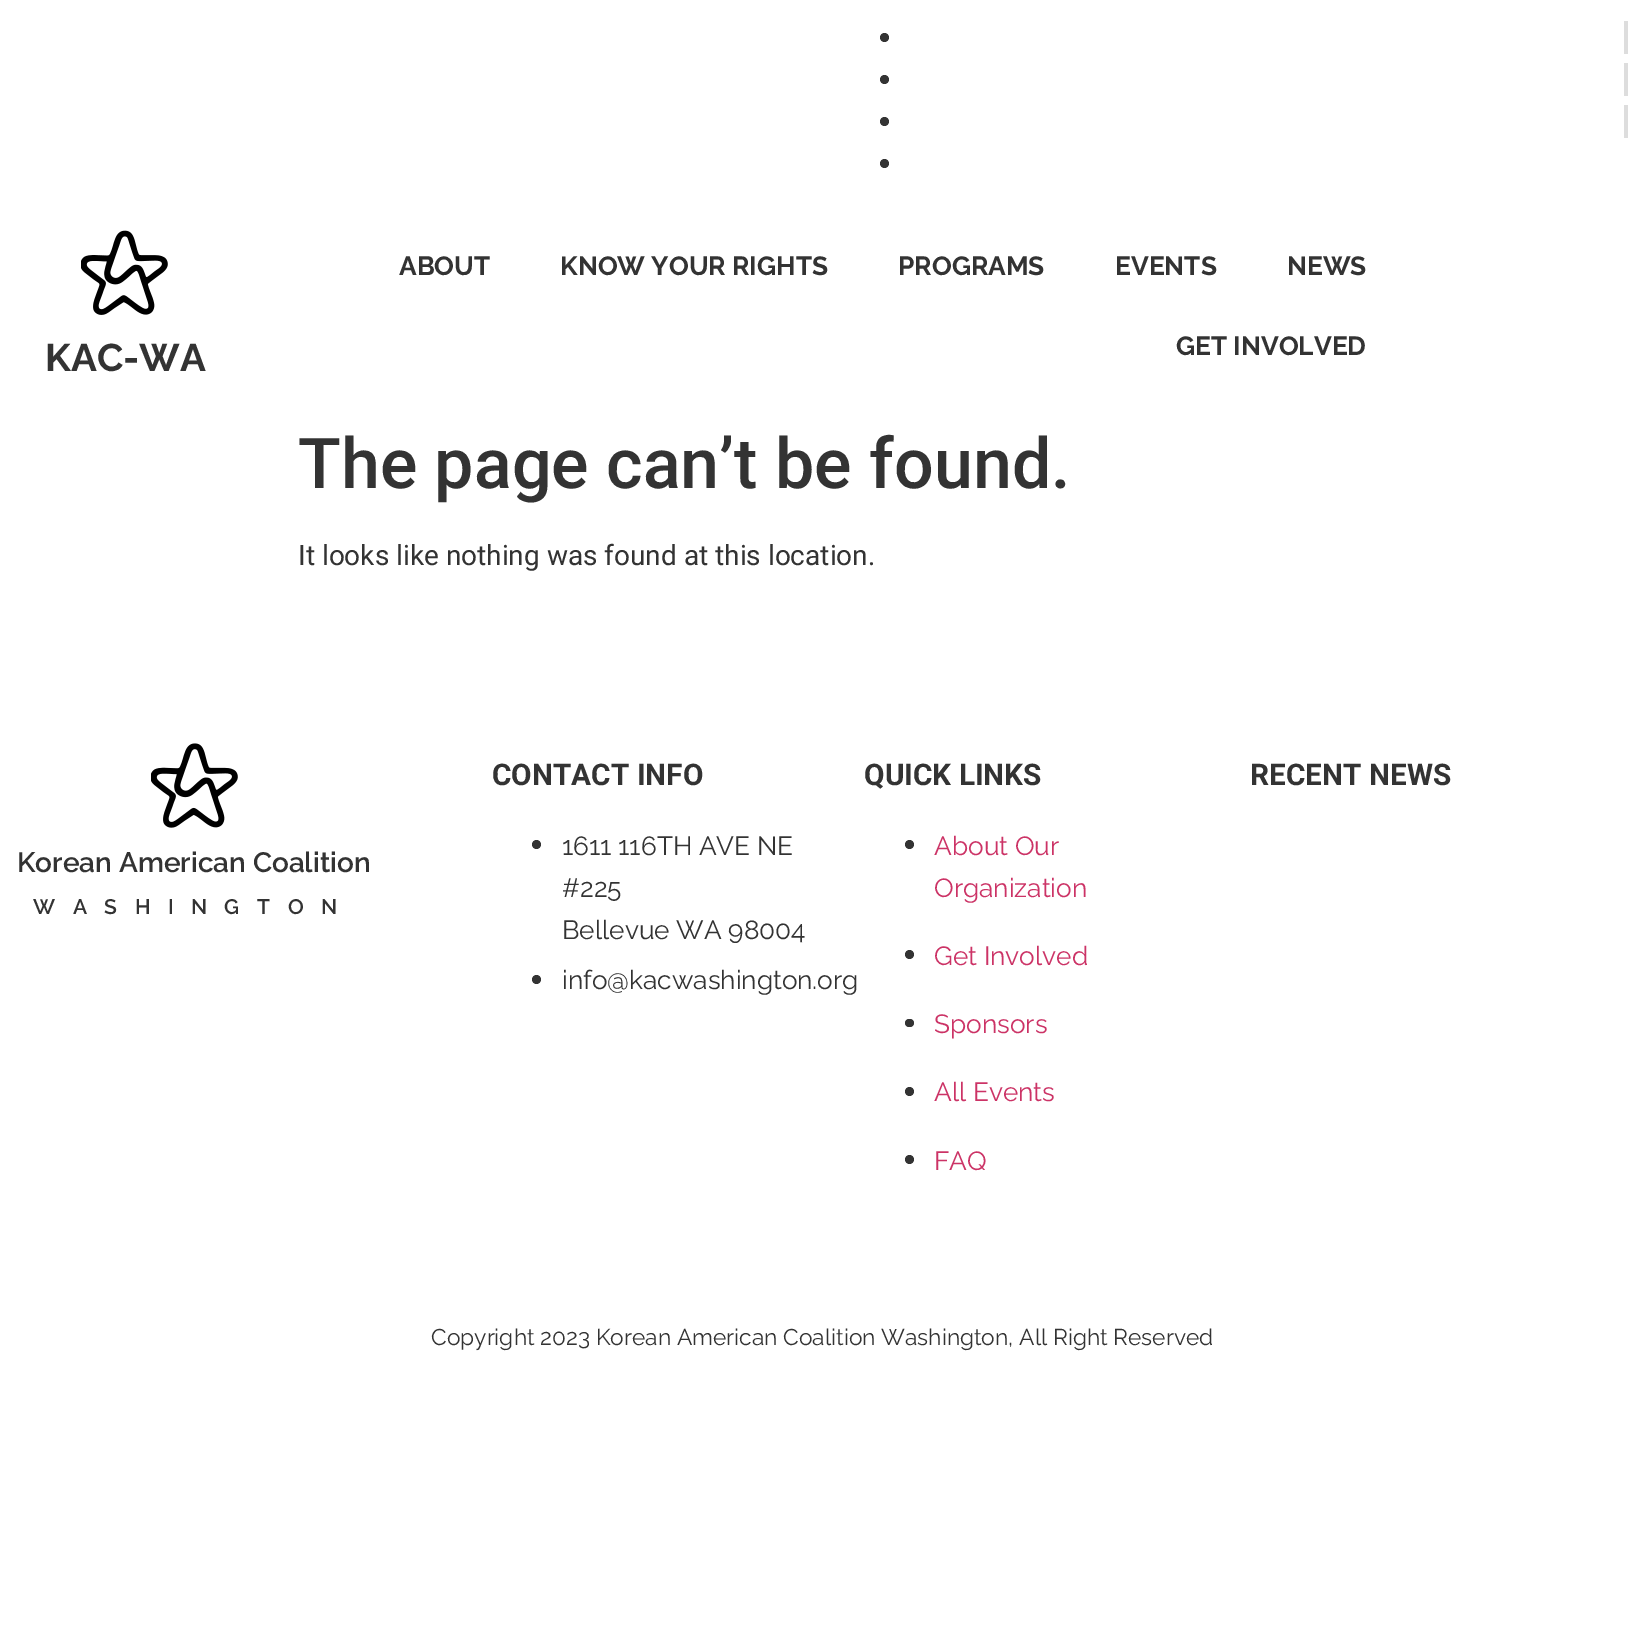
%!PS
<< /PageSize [1645 1635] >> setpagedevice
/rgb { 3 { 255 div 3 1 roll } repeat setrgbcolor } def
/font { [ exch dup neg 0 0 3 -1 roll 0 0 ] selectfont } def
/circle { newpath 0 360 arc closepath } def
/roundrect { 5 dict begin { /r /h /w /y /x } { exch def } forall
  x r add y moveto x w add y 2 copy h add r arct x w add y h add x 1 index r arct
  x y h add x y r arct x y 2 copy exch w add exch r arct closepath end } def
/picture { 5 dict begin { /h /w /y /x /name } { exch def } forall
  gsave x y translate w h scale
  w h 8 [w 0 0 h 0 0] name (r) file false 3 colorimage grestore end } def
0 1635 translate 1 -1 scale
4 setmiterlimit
255 255 255 rgb
0 0 1645 1635 rectfill
51 51 51 rgb
884.5 37.5 4.5 circle fill
221 221 221 rgb
1624 21 4 33 rectfill
51 51 51 rgb
884.5 79.5 4.5 circle fill
221 221 221 rgb
1624 63 4 33 rectfill
51 51 51 rgb
884.5 121.5 4.5 circle fill
221 221 221 rgb
1624 105 4 33 rectfill
51 51 51 rgb
884.5 163.5 4.5 circle fill
(img/1.rgb) 81 230 87 85 picture
536.5 844.5 4.5 circle fill
536.5 979.5 4.5 circle fill
909.5 844.5 4.5 circle fill
909.5 954.5 4.5 circle fill
905 1019 9 8 4 roundrect fill
909.5 1091.5 4.5 circle fill
909.5 1159.5 4.5 circle fill
(img/2.rgb) 151 743 87 85 picture
/Raleway-Bold 38.5 font
45 371 moveto (KAC-WA) show
/Raleway-Bold 26.25 font
[
  [(ABOUT) 399 275]
  [(KNOW YOUR RIGHTS) 560 275]
  [(PROGRAMS) 898 275]
  [(EVENTS) 1115 275]
  [(NEWS) 1287 275]
  [(GET INVOLVED) 1176 355]
] { aload pop moveto show } forall
/Roboto-Medium 70 font
298 488 moveto (The page can’t be found.) show
/Roboto-Regular 28 font
298 565 moveto (It looks like nothing was found at this location.) show
/Roboto-Bold 29.75 font
492 785 moveto (CONTACT INFO) show
/Raleway-Regular 26.25 font
[
  [(1611 116TH AVE NE) 562 855]
  [(#225) 562 897]
  [(Bellevue WA 98004) 562 939]
  [(info@kacwashington.org) 562 989]
] { aload pop moveto show } forall
/Roboto-Bold 29.75 font
864 785 moveto (QUICK LINKS) show
/Raleway-Regular 26.25 font
204 51 102 rgb
[
  [(About Our) 934 855]
  [(Organization) 934 897]
  [(Get Involved) 934 965]
  [(Sponsors) 934 1033]
  [(All Events) 934 1101]
  [(FAQ) 934 1170]
] { aload pop moveto show } forall
/Roboto-Bold 29.75 font
51 51 51 rgb
1250 785 moveto (RECENT NEWS) show
/Raleway-SemiBold 28 font
17 872 moveto (Korean American Coalition) show
/Raleway-SemiBold 21 font
33 914 moveto 17.5 0 (WASHINGTON) ashow
/Raleway-Regular 22.75 font
431 1345 moveto (Copyright 2023 Korean American Coalition Washington, All Right Reserved) show
showpage
